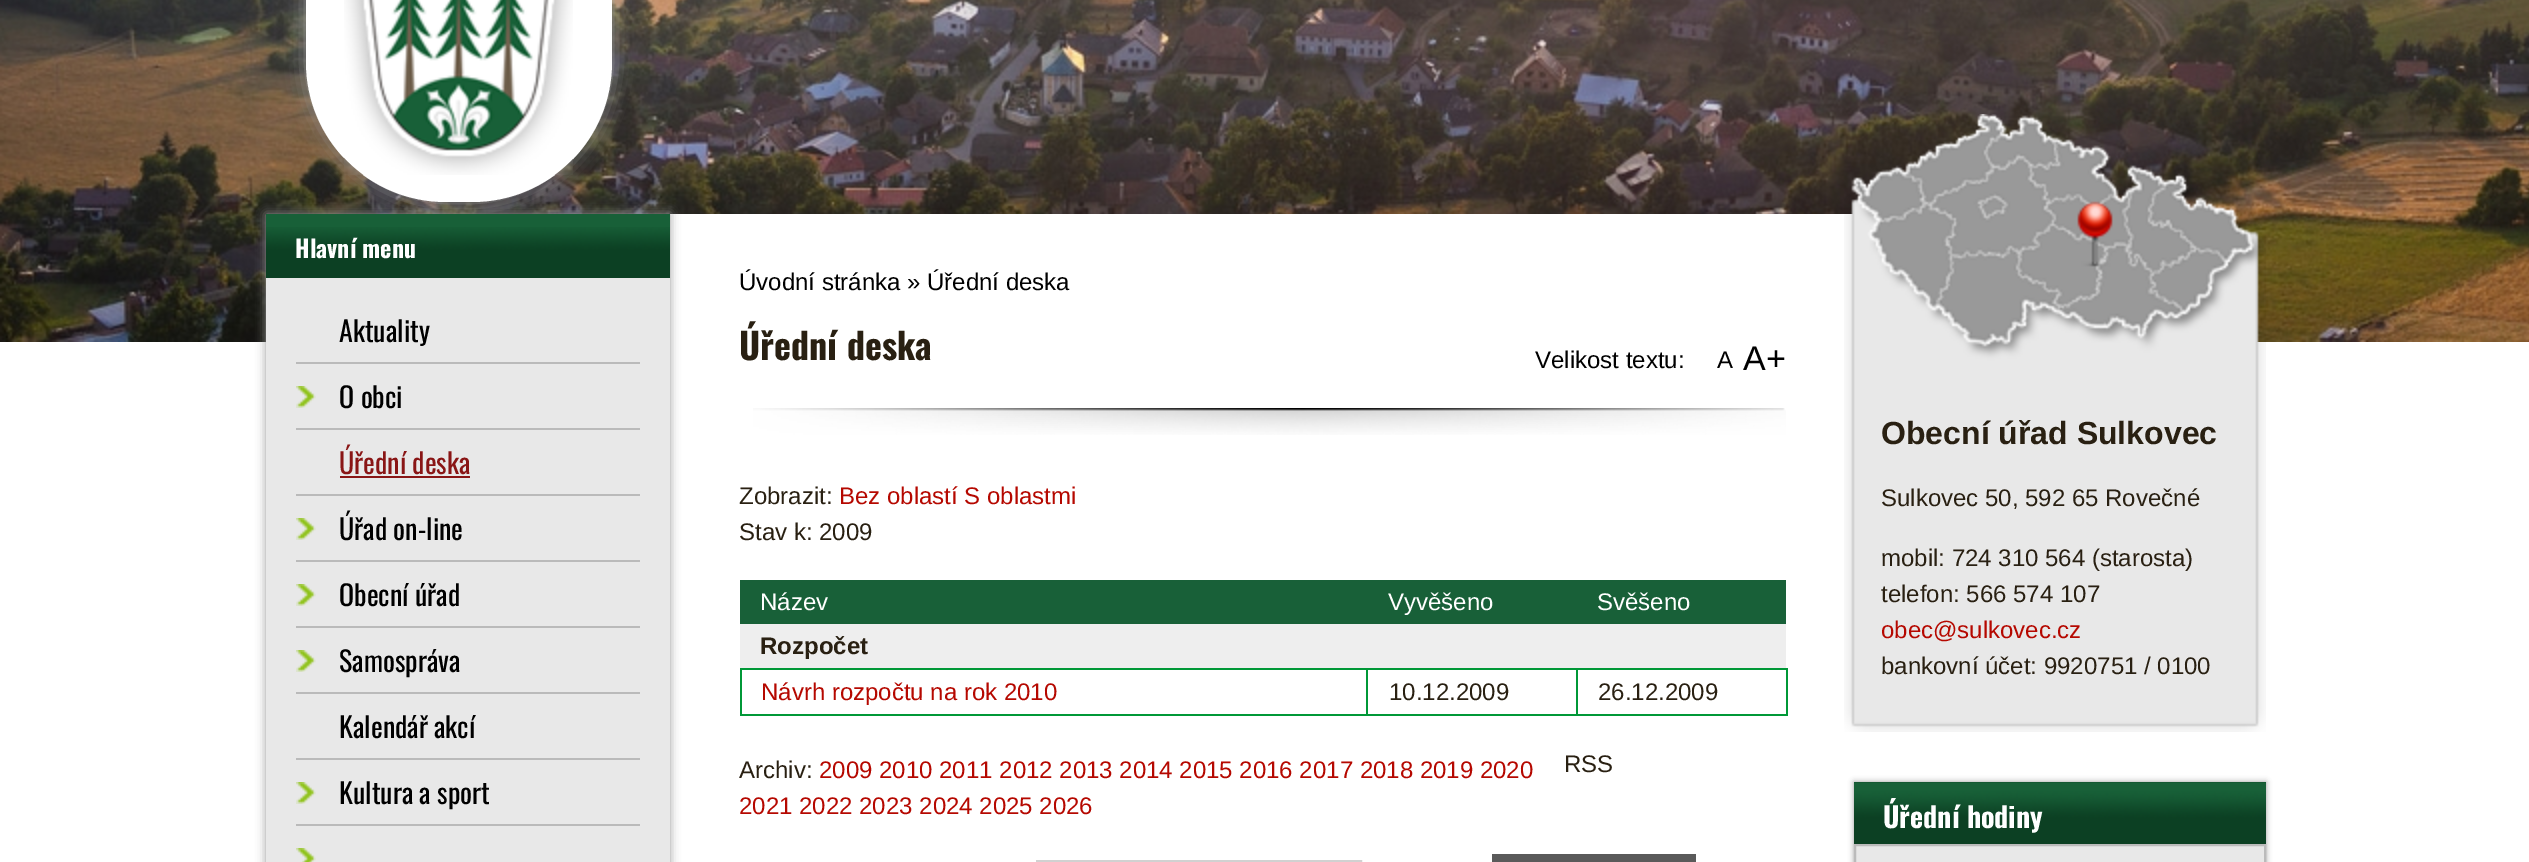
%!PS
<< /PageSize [2529 862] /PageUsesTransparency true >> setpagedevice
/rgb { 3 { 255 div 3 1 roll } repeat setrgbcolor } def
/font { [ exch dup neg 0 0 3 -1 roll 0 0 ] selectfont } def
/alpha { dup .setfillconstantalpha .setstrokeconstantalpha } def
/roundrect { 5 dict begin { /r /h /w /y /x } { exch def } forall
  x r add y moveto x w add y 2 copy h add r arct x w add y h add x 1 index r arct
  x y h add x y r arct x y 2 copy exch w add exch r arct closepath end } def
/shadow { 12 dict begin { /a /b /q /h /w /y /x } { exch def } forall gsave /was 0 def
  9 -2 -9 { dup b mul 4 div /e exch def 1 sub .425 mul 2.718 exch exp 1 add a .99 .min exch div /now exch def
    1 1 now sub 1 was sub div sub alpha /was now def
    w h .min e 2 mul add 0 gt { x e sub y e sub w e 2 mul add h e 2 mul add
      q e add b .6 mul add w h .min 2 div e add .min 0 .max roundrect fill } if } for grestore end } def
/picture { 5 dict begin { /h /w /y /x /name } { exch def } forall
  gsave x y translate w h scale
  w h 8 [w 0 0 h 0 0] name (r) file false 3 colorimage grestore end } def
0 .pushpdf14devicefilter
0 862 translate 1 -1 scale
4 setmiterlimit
255 255 255 rgb
0 0 2529 862 rectfill
(img/1.rgb) 0 0 2529 342 picture
153 153 153 rgb
306 -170 306 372 140 10 1 shadow
255 255 255 rgb
306 -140 moveto 612 -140 lineto 612 62 lineto 612 139.5 549.5 202 472 202 curveto 446 202 lineto 368.5 202 306 139.5 306 62 curveto closepath fill
(img/2.rgb) 344 0 229 175 picture
670 214 1183 128 rectfill
153 153 153 rgb
266 214 404 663 0 5 1 shadow
232 232 232 rgb
266 278 404 584 rectfill
24 96 56 rgb
266 214 404 13 rectfill
(img/3.rgb) 266 227 404 51 picture
186 186 186 rgb
296 362 344 2 rectfill
296 428 344 2 rectfill
(img/4.rgb) 296 386 20 22 picture
[
  [296 494 344 2 186 186 186]
  [340 476 130 2 137 21 21]
  [296 560 344 2 186 186 186]
] { aload pop rgb rectfill } forall
(img/4.rgb) 296 518 20 22 picture
296 626 344 2 rectfill
(img/4.rgb) 296 584 20 22 picture
296 692 344 2 rectfill
(img/4.rgb) 296 650 20 22 picture
296 758 344 2 rectfill
296 824 344 2 rectfill
(img/4.rgb) 296 782 20 22 picture
(img/5.rgb) 296 848 20 14 picture
(img/6.rgb) 753 408 1033 27 picture
[
  [740 580 1046 44 24 96 56]
  [740 624 1046 44 238 238 238]
  [1576 668 212 2 0 152 55]
  [1786 668 2 48 0 152 55]
  [1576 714 212 2 0 152 55]
  [1576 668 2 48 0 152 55]
  [1366 668 212 2 0 152 55]
  [1366 714 212 2 0 152 55]
  [1366 668 2 48 0 152 55]
  [740 668 628 2 0 152 55]
  [740 714 628 2 0 152 55]
  [740 668 2 48 0 152 55]
] { aload pop rgb rectfill } forall
209 209 209 rgb
2 setlinewidth
1037 861 324 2 rectstroke
90 90 90 rgb
1492 854 204 8 rectfill
(img/7.rgb) 1844 114 422 618 picture
153 153 153 rgb
1854 782 412 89 0 3 1 shadow
(img/8.rgb) 1854 782 412 62 picture
232 232 232 rgb
1855 845 moveto 2265 845 lineto 2265 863 lineto 1855 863 lineto closepath gsave fill grestore
187 187 187 rgb
stroke
/Oswald-Bold 24 font
255 255 255 rgb
295 258 moveto (Hlavní menu) show
/Oswald-Regular 28 font
0 0 0 rgb
339 342 moveto (Aktuality) show
339 408 moveto (O obci) show
137 21 21 rgb
339 474 moveto (Úřední deska) show
0 0 0 rgb
[
  [(Úřad on-line) 339 540]
  [(Obecní úřad) 339 606]
  [(Samospráva) 339 672]
  [(Kalendář akcí) 339 738]
  [(Kultura a sport) 339 804]
] { aload pop moveto show } forall
/LiberationSans-Regular 24 font
739 290 moveto (Úvodní stránka » Úřední deska) show
/Oswald-Bold 36 font
41 32 18 rgb
739 360 moveto (Úřední deska) show
/LiberationSans-Regular 24 font
0 0 0 rgb
1535 368 moveto (Velikost textu:) show
1717 368 moveto (A) show
/LiberationSans-Regular 34 font
1743 370 moveto (A+) show
/LiberationSans-Regular 24 font
41 32 18 rgb
739 504 moveto (Zobrazit:) show
181 8 0 rgb
839 504 moveto (Bez oblastí S oblastmi) show
41 32 18 rgb
739 540 moveto (Stav k: 2009) show
255 255 255 rgb
[
  [(Název) 760 610]
  [(Vyvěšeno) 1388 610]
  [(Svěšeno) 1597 610]
] { aload pop moveto show } forall
/LiberationSans-Bold 24 font
41 32 18 rgb
760 654 moveto (Rozpočet) show
/LiberationSans-Regular 24 font
181 8 0 rgb
761 700 moveto (Návrh rozpočtu na rok 2010) show
41 32 18 rgb
[
  [(10.12.2009) 1389 700]
  [(26.12.2009) 1598 700]
  [(Archiv:) 739 778]
] { aload pop moveto show } forall
181 8 0 rgb
819 778 moveto (2009 2010 2011 2012 2013 2014 2015 2016 2017 2018 2019 2020) show
41 32 18 rgb
1564 772 moveto (RSS) show
181 8 0 rgb
739 814 moveto (2021 2022 2023 2024 2025 2026) show
/LiberationSans-Bold 32 font
41 32 18 rgb
1881 444 moveto (Obecní úřad Sulkovec) show
/LiberationSans-Regular 24 font
[
  [(Sulkovec 50, 592 65 Rovečné) 1881 506]
  [(mobil: 724 310 564 \(starosta\)) 1881 566]
  [(telefon: 566 574 107) 1881 602]
] { aload pop moveto show } forall
181 8 0 rgb
1881 638 moveto (obec@sulkovec.cz) show
41 32 18 rgb
1881 674 moveto (bankovní účet: 9920751 / 0100) show
/Oswald-Bold 28 font
255 255 255 rgb
1883 828 moveto (Úřední hodiny) show
.poppdf14devicefilter showpage
